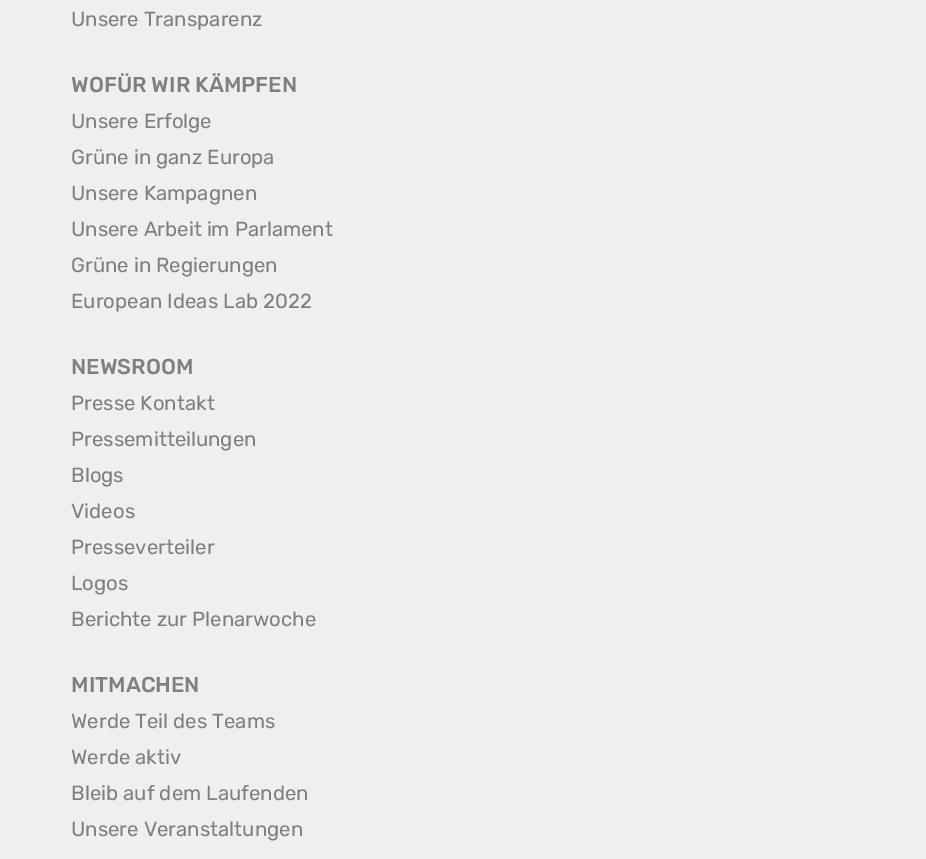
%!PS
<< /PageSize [926 859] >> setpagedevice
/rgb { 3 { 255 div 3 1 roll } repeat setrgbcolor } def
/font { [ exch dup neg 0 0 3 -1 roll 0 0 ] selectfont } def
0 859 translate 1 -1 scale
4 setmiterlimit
239 239 239 rgb
0 0 926 859 rectfill
/Rubik-Regular 20.4 font
127 127 127 rgb
71 26 moveto (Unsere Transparenz) show
/Rubik-Medium 21.6 font
71 92 moveto (WOFÜR WIR KÄMPFEN) show
/Rubik-Regular 20.4 font
[
  [(Unsere Erfolge) 71 128]
  [(Grüne in ganz Europa) 71 164]
  [(Unsere Kampagnen) 71 200]
  [(Unsere Arbeit im Parlament) 71 236]
  [(Grüne in Regierungen) 71 272]
  [(European Ideas Lab 2022) 71 308]
] { aload pop moveto show } forall
/Rubik-Medium 21.6 font
71 374 moveto (NEWSROOM) show
/Rubik-Regular 20.4 font
[
  [(Presse Kontakt) 71 410]
  [(Pressemitteilungen) 71 446]
  [(Blogs) 71 482]
  [(Videos) 71 518]
  [(Presseverteiler) 71 554]
  [(Logos) 71 590]
  [(Berichte zur Plenarwoche) 71 626]
] { aload pop moveto show } forall
/Rubik-Medium 21.6 font
71 692 moveto (MITMACHEN) show
/Rubik-Regular 20.4 font
[
  [(Werde Teil des Teams) 71 728]
  [(Werde aktiv) 71 764]
  [(Bleib auf dem Laufenden) 71 800]
  [(Unsere Veranstaltungen) 71 836]
] { aload pop moveto show } forall
showpage
